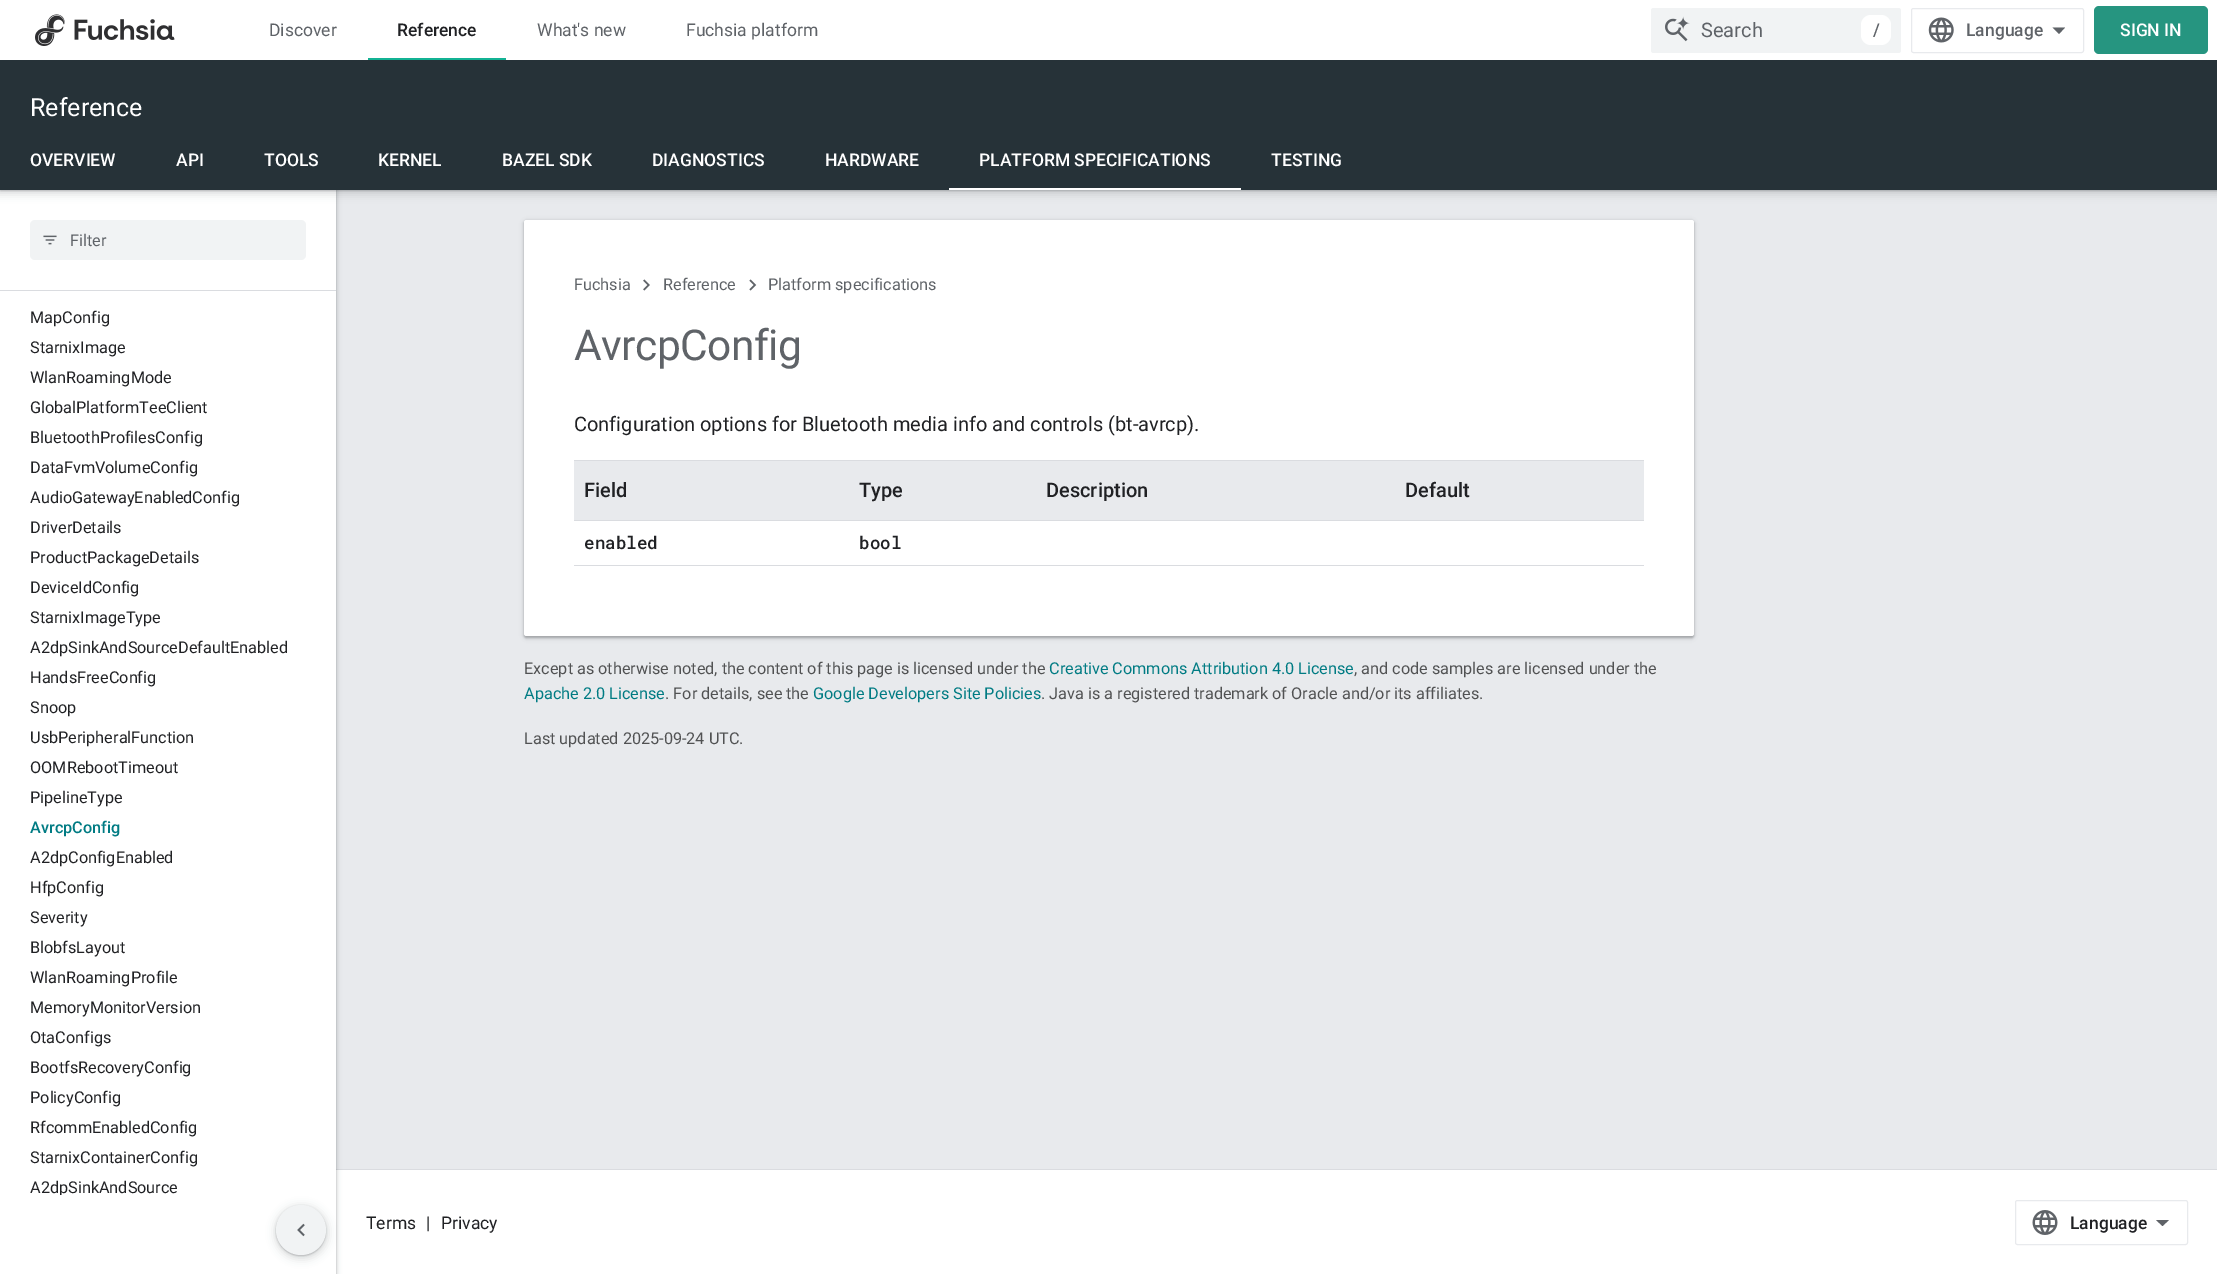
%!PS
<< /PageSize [2217 1274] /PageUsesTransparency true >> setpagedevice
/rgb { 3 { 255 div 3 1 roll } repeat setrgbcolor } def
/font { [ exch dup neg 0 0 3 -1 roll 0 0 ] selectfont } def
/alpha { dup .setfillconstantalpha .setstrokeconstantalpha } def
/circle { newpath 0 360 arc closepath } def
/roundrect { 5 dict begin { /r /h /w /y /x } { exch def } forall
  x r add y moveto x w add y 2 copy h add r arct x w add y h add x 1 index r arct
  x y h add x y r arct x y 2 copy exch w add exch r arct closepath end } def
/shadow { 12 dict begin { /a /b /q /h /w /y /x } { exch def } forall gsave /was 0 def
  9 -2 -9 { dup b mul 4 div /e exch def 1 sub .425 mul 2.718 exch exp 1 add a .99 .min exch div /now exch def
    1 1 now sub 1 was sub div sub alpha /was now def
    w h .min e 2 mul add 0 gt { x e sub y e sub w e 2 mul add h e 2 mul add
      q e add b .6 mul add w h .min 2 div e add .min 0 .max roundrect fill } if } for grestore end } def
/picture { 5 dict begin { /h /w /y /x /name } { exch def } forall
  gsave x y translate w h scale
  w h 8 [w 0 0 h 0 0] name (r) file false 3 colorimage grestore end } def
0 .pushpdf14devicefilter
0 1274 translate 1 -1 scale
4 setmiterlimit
232 234 237 rgb
0 0 2217 1274 rectfill
218 220 224 rgb
336 1169 1881 1 rectfill
255 255 255 rgb
336 1170 1881 104 rectfill
60 64 67 rgb
-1 0 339 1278 0 2 0.15 shadow
0 1 336 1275 0 1 0.3 shadow
255 255 255 rgb
0 291 336 904 rectfill
0 190 336 100 rectfill
60 64 67 rgb
-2 60 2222 135 0 4 0.15 shadow
0 61 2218 130 0 1 0.3 shadow
255 255 255 rgb
0 0 2217 60 rectfill
(img/1.rgb) 35 14 140 32 picture
19 178 148 rgb
368 58 138 2 rectfill
241 243 244 rgb
1651 8 250 45 2.5 roundrect fill
(img/2.rgb) 1665 16 25 26 picture
255 255 255 rgb
1861 15 30 30 10 roundrect fill
232 234 237 rgb
1911.5 8.5 172 44 2 roundrect stroke
(img/3.rgb) 1928 17 26 26 picture
95 99 104 rgb
2059 34 moveto 2052.5 27.5 lineto 2065 27.5 lineto closepath fill
38 149 128 rgb
2094 6 114 48 5 roundrect fill
[
  [0 60 2217 130 38 50 56]
  [949 188 292 2 255 255 255]
  [0 290 336 1 218 220 224]
] { aload pop rgb rectfill } forall
241 243 244 rgb
30 220 276 40 5 roundrect fill
(img/4.rgb) 43 235 14 10 picture
60 64 67 rgb
523 220 1172 419 4 2 0.15 shadow
524 221 1170 417 2.5 1 0.3 shadow
255 255 255 rgb
524 220 1170 416 2.5 roundrect fill
(img/6.rgb) 643 279 7 12 picture
(img/7.rgb) 749 279 8 12 picture
[
  [574 460 1070 1 218 220 224]
  [574 520 1070 1 218 220 224]
  [574 461 1070 59 232 234 237]
  [574 565 1070 1 218 220 224]
] { aload pop rgb rectfill } forall
232 234 237 rgb
2015.5 1200.5 172 44 2 roundrect stroke
(img/8.rgb) 2032 1210 26 25 picture
95 99 104 rgb
2162.5 1226 moveto 2156 1220 lineto 2169 1220 lineto closepath fill
/Roboto-Regular 17.5 font
269 36 moveto (Discover) show
/Roboto-Medium 17.5 font
32 33 36 rgb
397 36 moveto (Reference) show
/Roboto-Regular 17.5 font
95 99 104 rgb
537 36 moveto (What's new) show
686 36 moveto (Fuchsia platform) show
/Roboto-Regular 20 font
1701 37 moveto (Search) show
/Roboto-Medium 17.5 font
1873 36 moveto (/) show
1966 36 moveto (Language) show
255 255 255 rgb
2120 36 moveto (SIGN IN) show
/Roboto-Regular 25 font
30 116 moveto (Reference) show
/Roboto-Medium 17.5 font
[
  [(OVERVIEW) 30 166]
  [(API) 176 166]
  [(TOOLS) 264 166]
  [(KERNEL) 378 166]
  [(BAZEL SDK) 502 166]
  [(DIAGNOSTICS) 652 166]
  [(HARDWARE) 825 166]
  [(PLATFORM SPECIFICATIONS) 979 166]
  [(TESTING) 1271 166]
] { aload pop moveto show } forall
/Roboto-Regular 16.25 font
95 99 104 rgb
70 246 moveto (Filter) show
32 33 36 rgb
[
  [(MapConfig) 30 323]
  [(StarnixImage) 30 353]
  [(WlanRoamingMode) 30 383]
  [(GlobalPlatformTeeClient) 30 413]
  [(BluetoothProfilesConfig) 30 443]
  [(DataFvmVolumeConfig) 30 473]
  [(AudioGatewayEnabledConfig) 30 503]
  [(DriverDetails) 30 533]
  [(ProductPackageDetails) 30 563]
  [(DeviceIdConfig) 30 593]
  [(StarnixImageType) 30 623]
  [(A2dpSinkAndSourceDefaultEnabled) 30 653]
  [(HandsFreeConfig) 30 683]
  [(Snoop) 30 713]
  [(UsbPeripheralFunction) 30 743]
  [(OOMRebootTimeout) 30 773]
  [(PipelineType) 30 803]
] { aload pop moveto show } forall
/Roboto-Medium 16.25 font
0 123 131 rgb
30 833 moveto (AvrcpConfig) show
/Roboto-Regular 16.25 font
32 33 36 rgb
[
  [(A2dpConfigEnabled) 30 863]
  [(HfpConfig) 30 893]
  [(Severity) 30 923]
  [(BlobfsLayout) 30 953]
  [(WlanRoamingProfile) 30 983]
  [(MemoryMonitorVersion) 30 1013]
  [(OtaConfigs) 30 1043]
  [(BootfsRecoveryConfig) 30 1073]
  [(PolicyConfig) 30 1103]
  [(RfcommEnabledConfig) 30 1133]
  [(StarnixContainerConfig) 30 1163]
  [(A2dpSinkAndSource) 30 1193]
] { aload pop moveto show } forall
95 99 104 rgb
[
  [(Fuchsia) 574 290]
  [(Reference) 663 290]
  [(Platform specifications) 768 290]
] { aload pop moveto show } forall
/Roboto-Regular 42.5 font
574 360 moveto -0.5 0 (AvrcpConfig) ashow
/Roboto-Regular 20 font
32 33 36 rgb
574 431 moveto (Configuration options for Bluetooth media info and controls \(bt-avrcp\).) show
/Roboto-Medium 20 font
[
  [(Field) 584 497]
  [(Type) 859 497]
  [(Description) 1046 497]
  [(Default) 1405 497]
] { aload pop moveto show } forall
/RobotoMono-Medium 17.5 font
584 549 moveto (enabled) show
859 549 moveto (bool) show
/Roboto-Regular 16.25 font
81 82 83 rgb
524 674 moveto (Except as otherwise noted, the content of this page is licensed under the) show
0 123 131 rgb
1049 674 moveto (Creative Commons Attribution 4.0 License) show
81 82 83 rgb
1354 674 moveto (, and code samples are licensed under the) show
0 123 131 rgb
524 699 moveto (Apache 2.0 License) show
81 82 83 rgb
665 699 moveto (. For details, see the) show
0 123 131 rgb
813 699 moveto (Google Developers Site Policies) show
81 82 83 rgb
1041 699 moveto (. Java is a registered trademark of Oracle and/or its affiliates.) show
524 744 moveto (Last updated 2025-09-24 UTC.) show
/Roboto-Regular 17.5 font
32 33 36 rgb
[
  [(Terms) 366 1229]
  [(|) 426 1229]
  [(Privacy) 441 1229]
] { aload pop moveto show } forall
/Roboto-Medium 17.5 font
2070 1229 moveto (Language) show
255 255 255 rgb
0 1195 336 79 rectfill
60 64 67 rgb
276 1206 50 50 25 1 0.3 shadow
274 1205 55 55 27.5 4 0.15 shadow
241 243 244 rgb
301 1230 25 circle fill
(img/5.rgb) 297 1223 8 14 picture
.poppdf14devicefilter showpage
